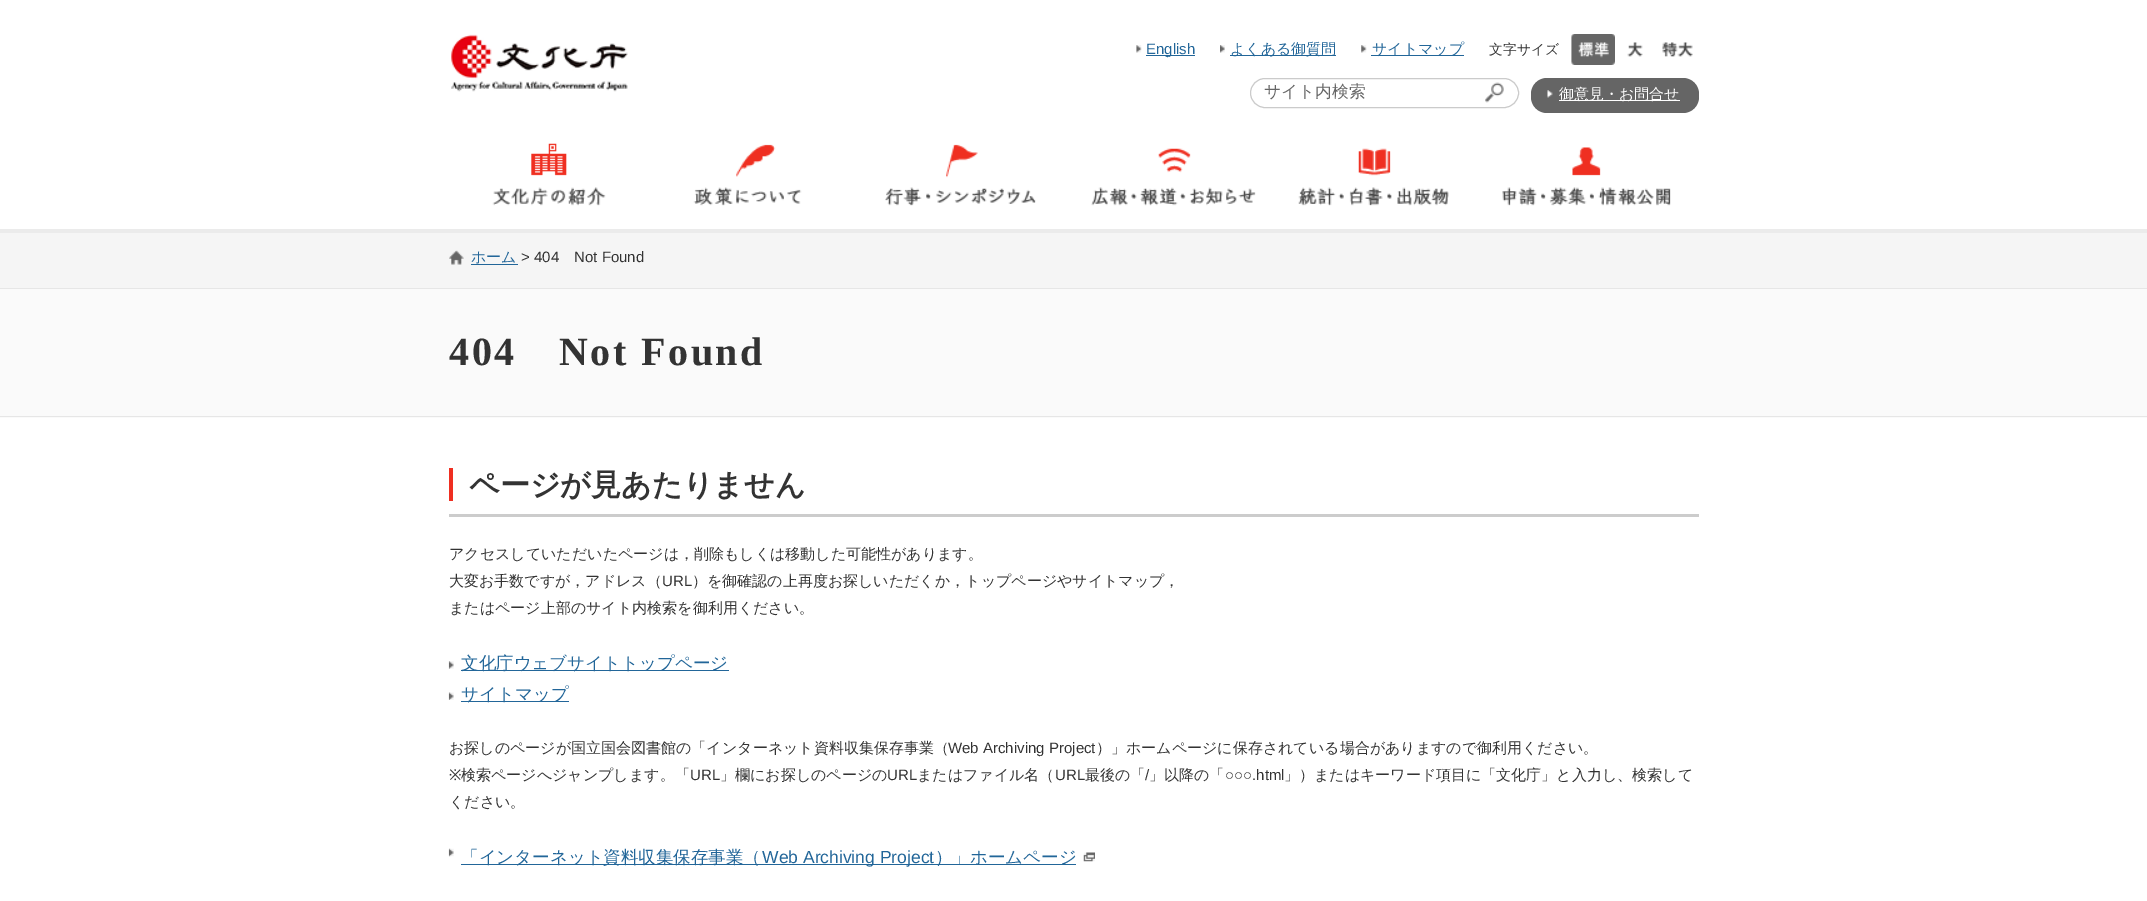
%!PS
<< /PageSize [2147 901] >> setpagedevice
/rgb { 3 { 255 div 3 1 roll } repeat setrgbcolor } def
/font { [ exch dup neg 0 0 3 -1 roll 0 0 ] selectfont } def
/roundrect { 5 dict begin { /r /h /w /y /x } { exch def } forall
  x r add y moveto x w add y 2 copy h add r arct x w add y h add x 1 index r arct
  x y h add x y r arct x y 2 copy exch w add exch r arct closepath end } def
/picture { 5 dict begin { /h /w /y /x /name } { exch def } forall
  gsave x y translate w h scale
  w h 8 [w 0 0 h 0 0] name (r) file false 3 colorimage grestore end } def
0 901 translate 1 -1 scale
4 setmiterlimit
255 255 255 rgb
0 0 2147 901 rectfill
(img/1.rgb) 451 34 177 58 picture
(img/2.rgb) 1136 45 6 8 picture
34 102 153 rgb
1146 55 49 1 rectfill
(img/3.rgb) 1220 45 5 8 picture
1230 55 106 1 rectfill
(img/4.rgb) 1361 45 6 8 picture
1371 55 93 1 rectfill
(img/5.rgb) 1571 34 44 31 picture
(img/6.rgb) 1627 42 16 15 picture
(img/7.rgb) 1662 42 31 15 picture
203 203 203 rgb
1250.5 78.5 268 29 14.5 roundrect stroke
(img/8.rgb) 1485 82 19 21 picture
101 101 101 rgb
1531 78 168 35 16 roundrect fill
(img/9.rgb) 1547 90 6 8 picture
255 255 255 rgb
1559 100 121 1 rectfill
(img/10.rgb) 492 143 114 63 picture
(img/11.rgb) 693 144 109 62 picture
(img/12.rgb) 885 144 151 62 picture
(img/13.rgb) 1091 148 165 58 picture
(img/14.rgb) 1298 148 151 58 picture
(img/15.rgb) 1502 147 169 59 picture
245 245 245 rgb
0 233 2147 55 rectfill
235 235 235 rgb
0 229 2147 4 rectfill
(img/16.rgb) 449 250 15 15 picture
[
  [471 264 47 1 34 102 153]
  [0 289 2147 129 250 250 250]
  [0 288 2147 1 230 230 230]
  [0 416 2147 1 230 230 230]
  [449 514 1250 3 204 204 204]
  [449 468 4 33 239 47 33]
] { aload pop rgb rectfill } forall
(img/17.rgb) 448 661 6 8 picture
34 102 153 rgb
461 670 268 1 rectfill
(img/18.rgb) 448 692 6 8 picture
461 701 108 1 rectfill
(img/19.rgb) 448 848 6 9 picture
461 864 615 1 rectfill
(img/20.rgb) 1083 852 12 10 picture
/LiberationSans-Regular 15 font
1146 54 moveto (English) show
/WenQuanYiZenHei-Medium 15 font
1230 54 moveto (よくある御質問) show
1372 54 moveto (サイトマップ) show
/WenQuanYiZenHei-Medium 13.75 font
51 51 51 rgb
1489 54 moveto (文字サイズ) show
/WenQuanYiZenHei-Medium 16.75 font
102 102 102 rgb
1264 97 moveto (サイト内検索) show
/WenQuanYiZenHei-Medium 15 font
255 255 255 rgb
1559 99 moveto (御意見・お問合せ) show
34 102 153 rgb
471 262 moveto (ホーム) show
/LiberationSans-Regular 15 font
51 51 51 rgb
521 262 moveto (> 404) show
574 262 moveto (Not Found) show
/LiberationSerif-Bold 40 font
449 365 moveto 2.5 0 (404) ashow
559 365 moveto 2.5 0 (Not Found) ashow
/WenQuanYiZenHei-Bold 30 font
469 495 moveto (ページが見あたりません) show
/WenQuanYiZenHei-Medium 15 font
449 559 moveto (アクセスしていただいたページは，削除もしくは移動した可能性があります。) show
449 586 moveto (大変お手数ですが，アドレス（) show
/LiberationSans-Regular 15 font
662 586 moveto (URL) show
/WenQuanYiZenHei-Medium 15 font
692 586 moveto (）を御確認の上再度お探しいただくか，トップページやサイトマップ，) show
449 613 moveto (またはページ上部のサイト内検索を御利用ください。) show
/WenQuanYiZenHei-Medium 17.5 font
34 102 153 rgb
461 669 moveto (文化庁ウェブサイトトップページ) show
461 700 moveto (サイトマップ) show
/WenQuanYiZenHei-Medium 15 font
51 51 51 rgb
449 753 moveto (お探しのページが国立国会図書館の「インターネット資料収集保存事業（) show
/LiberationSans-Regular 15 font
948 753 moveto (Web Archiving Project) show
/WenQuanYiZenHei-Medium 15 font
1096 753 moveto (）」ホームページに保存されている場合がありますので御利用ください。) show
/NotoSans-Regular 15 font
449 780 moveto (※) show
/WenQuanYiZenHei-Medium 15 font
461 780 moveto (検索ページへジャンプします。「) show
/LiberationSans-Regular 15 font
690 780 moveto (URL) show
/WenQuanYiZenHei-Medium 15 font
720 780 moveto (」欄にお探しのページの) show
/LiberationSans-Regular 15 font
887 780 moveto (URL) show
/WenQuanYiZenHei-Medium 15 font
917 780 moveto (またはファイル名（) show
/LiberationSans-Regular 15 font
1055 780 moveto (URL) show
/WenQuanYiZenHei-Medium 15 font
1085 780 moveto (最後の「) show
/LiberationSans-Regular 15 font
1145 780 moveto (/) show
/WenQuanYiZenHei-Medium 15 font
1149 780 moveto (」以降の「) show
/LiberationSans-Regular 15 font
1225 780 moveto (○○○.html) show
/WenQuanYiZenHei-Medium 15 font
1284 780 moveto (」）またはキーワード項目に「文化庁」と入力し、検索して) show
449 807 moveto (ください。) show
/WenQuanYiZenHei-Medium 17.5 font
34 102 153 rgb
461 863 moveto (「インターネット資料収集保存事業（) show
/LiberationSans-Regular 17.5 font
762 863 moveto (Web Archiving Project) show
/WenQuanYiZenHei-Medium 17.5 font
935 863 moveto (）」ホームページ) show
showpage
